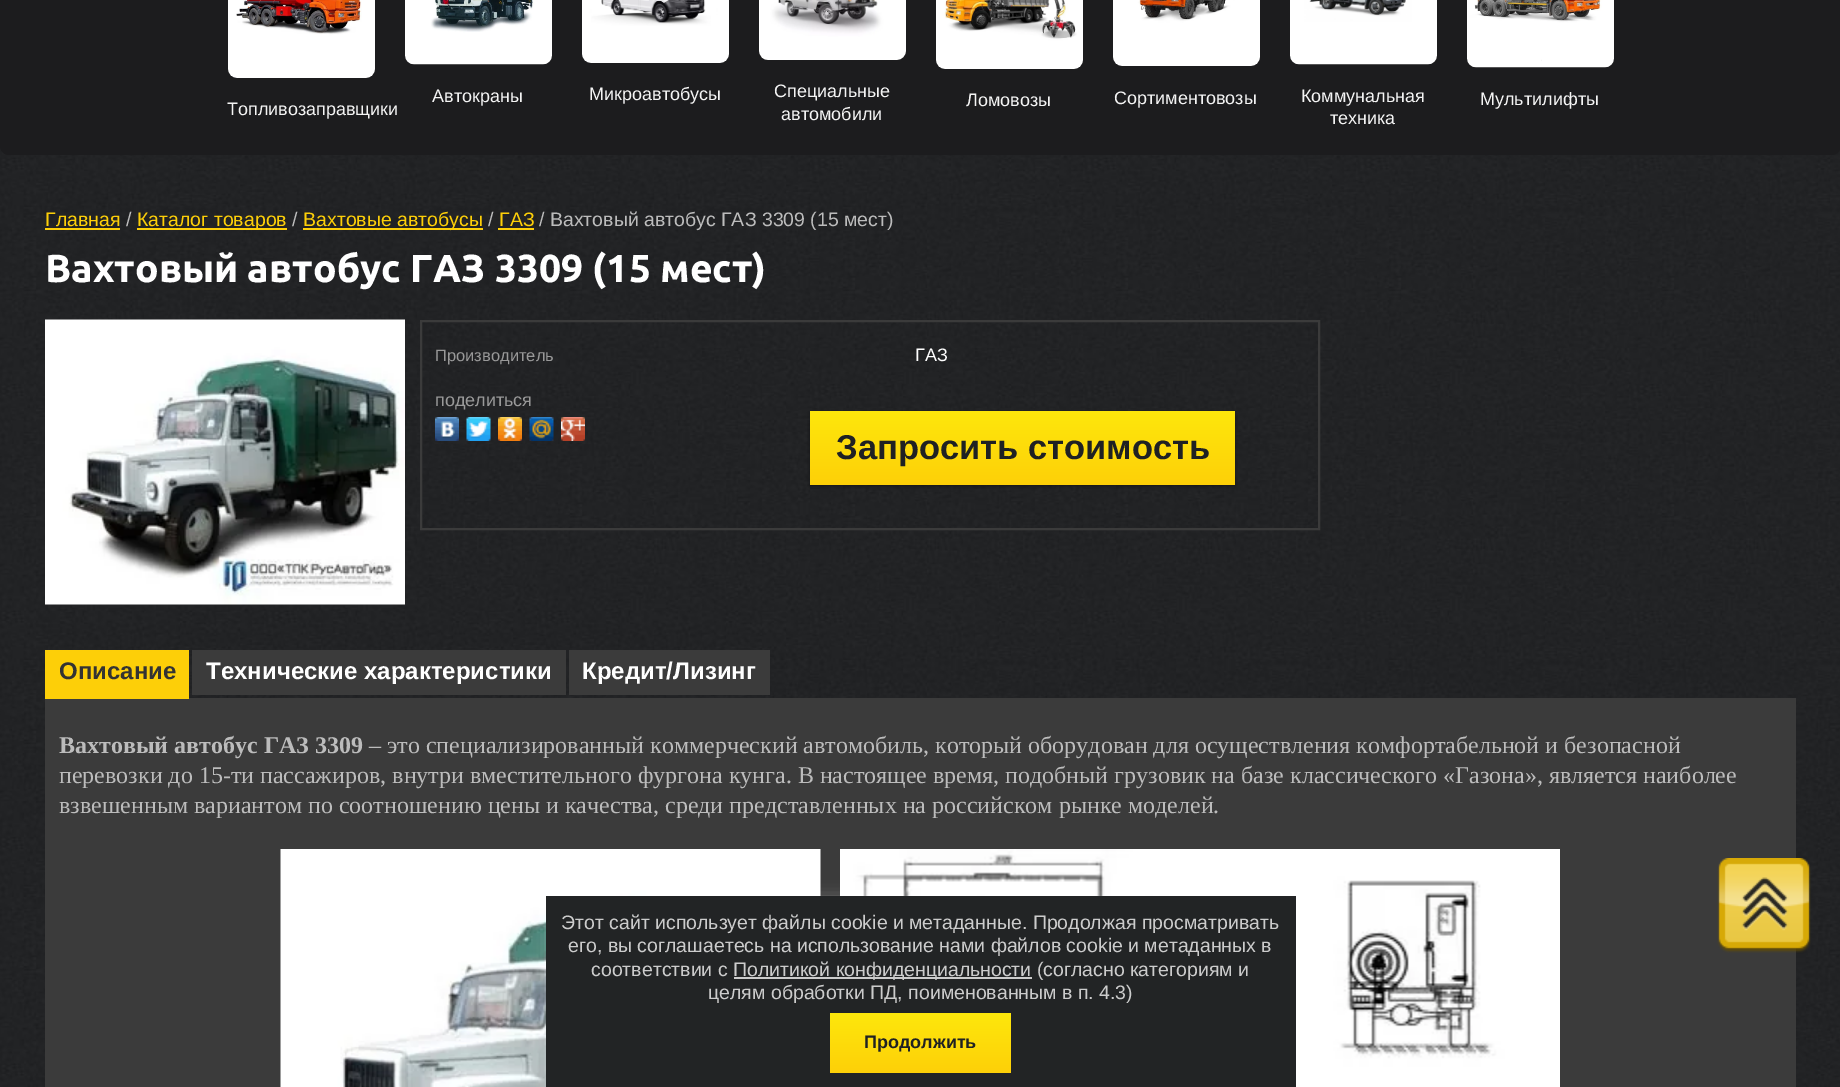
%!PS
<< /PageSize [1840 1087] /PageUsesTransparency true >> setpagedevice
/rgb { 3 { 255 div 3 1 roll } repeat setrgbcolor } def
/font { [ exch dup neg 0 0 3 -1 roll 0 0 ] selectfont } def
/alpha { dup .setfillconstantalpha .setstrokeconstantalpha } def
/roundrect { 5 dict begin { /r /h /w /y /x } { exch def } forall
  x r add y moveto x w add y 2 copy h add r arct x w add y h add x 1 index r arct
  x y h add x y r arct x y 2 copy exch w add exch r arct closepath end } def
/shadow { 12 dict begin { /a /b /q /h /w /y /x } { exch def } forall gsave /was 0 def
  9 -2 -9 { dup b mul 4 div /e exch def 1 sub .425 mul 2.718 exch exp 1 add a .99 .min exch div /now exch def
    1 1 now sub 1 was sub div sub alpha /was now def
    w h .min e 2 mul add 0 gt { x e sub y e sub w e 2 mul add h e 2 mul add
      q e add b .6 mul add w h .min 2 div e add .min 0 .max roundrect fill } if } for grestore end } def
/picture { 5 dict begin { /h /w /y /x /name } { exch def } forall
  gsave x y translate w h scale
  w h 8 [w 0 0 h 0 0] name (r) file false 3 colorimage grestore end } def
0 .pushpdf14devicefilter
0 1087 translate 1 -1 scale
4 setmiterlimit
255 255 255 rgb
0 0 1840 1087 rectfill
(img/1.rgb) 0 146 1840 941 picture
28 28 30 rgb
0 -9 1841 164 9 roundrect fill
(img/2.rgb) 405 0 147 65 picture
(img/3.rgb) 582 0 147 63 picture
(img/4.rgb) 759 0 147 60 picture
(img/5.rgb) 936 0 147 69 picture
(img/6.rgb) 1113 0 147 66 picture
(img/7.rgb) 1290 0 147 65 picture
(img/8.rgb) 1467 0 147 68 picture
(img/9.rgb) 228 0 147 78 picture
[
  [45 228 75 2 253 207 8]
  [137 228 150 2 253 207 8]
  [303 228 180 2 253 207 8]
  [498 228 36 2 253 207 8]
] { aload pop rgb rectfill } forall
(img/10.rgb) 45 319 360 286 picture
59 59 59 rgb
2 setlinewidth
421 321 898 208 rectstroke
(img/11.rgb) 435 417 24 24 picture
(img/12.rgb) 466 417 25 24 picture
(img/13.rgb) 498 417 24 24 picture
(img/14.rgb) 529 417 25 24 picture
(img/15.rgb) 561 417 24 24 picture
0 0 0 rgb
810 413 425 73 0 2 0.4 shadow
gsave 810 411 moveto 1235 411 lineto 1235 485 lineto 810 485 lineto closepath clip newpath
<< /ShadingType 2 /ColorSpace /DeviceRGB /Coords [1022 411 1022 485] /Extend [true true] /Function << /FunctionType 2 /Domain [0 1] /C0 [0.996 0.906 0.047] /C1 [0.992 0.816 0.031] /N 1 >> >> shfill grestore
[
  [45 698 1751 389 59 59 59]
  [45 650 144 49 253 207 8]
  [192 650 374 45 59 59 59]
  [569 650 201 45 59 59 59]
] { aload pop rgb rectfill } forall
(img/16.rgb) 280 849 541 238 picture
(img/17.rgb) 840 849 720 238 picture
255 255 255 rgb
546 897 750 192 0 7.5 0.25 shadow
34 36 37 rgb
546 896 750 191 rectfill
204 204 204 rgb
734 977 298 2 rectfill
gsave 830 1013 moveto 1011 1013 lineto 1011 1073 lineto 830 1073 lineto closepath clip newpath
<< /ShadingType 2 /ColorSpace /DeviceRGB /Coords [920 1013 920 1073] /Extend [true true] /Function << /FunctionType 2 /Domain [0 1] /C0 [0.996 0.906 0.047] /C1 [0.992 0.816 0.031] /N 1 >> >> shfill grestore
(img/18.rgb) 1717 858 94 95 picture
/LiberationSans-Regular 18 font
244 244 244 rgb
[
  [(Автокраны) 432 102]
  [(Микроавтобусы) 589 100]
  [(Специальные) 774 97]
  [(автомобили) 781 120]
  [(Ломовозы) 966 106]
  [(Сортиментовозы) 1114 104]
  [(Коммунальная) 1301 102]
  [(техника) 1330 124]
  [(Мультилифты) 1480 105]
  [(Топливозаправщики) 227 115]
] { aload pop moveto show } forall
/LiberationSans-Regular 19.5 font
253 207 8 rgb
45 226 moveto (Главная) show
188 188 188 rgb
126 226 moveto (/) show
253 207 8 rgb
137 226 moveto (Каталог товаров) show
188 188 188 rgb
292 226 moveto (/) show
253 207 8 rgb
303 226 moveto (Вахтовые автобусы) show
188 188 188 rgb
488 226 moveto (/) show
253 207 8 rgb
499 226 moveto (ГАЗ) show
188 188 188 rgb
539 226 moveto (/ Вахтовый автобус ГАЗ 3309 \(15 мест\)) show
/Ubuntu-Bold 39 font
255 255 255 rgb
45 282 moveto (Вахтовый автобус ГАЗ 3309 \(15 мест\)) show
/LiberationSans-Regular 16.5 font
153 153 153 rgb
435 361 moveto (Производитель) show
/LiberationSans-Regular 18 font
255 255 255 rgb
915 361 moveto (ГАЗ) show
153 153 153 rgb
435 406 moveto (поделиться) show
/LiberationSans-Bold 34.5 font
31 33 35 rgb
836 459 moveto (Запросить стоимость) show
/LiberationSans-Bold 24 font
51 51 51 rgb
59 679 moveto (Описание) show
255 255 255 rgb
206 679 moveto (Технические характеристики) show
582 679 moveto (Кредит/Лизинг) show
/LiberationSerif-Bold 24 font
188 188 188 rgb
59 753 moveto (Вахтовый автобус ГАЗ 3309) show
/LiberationSerif-Regular 24 font
[
  [(– это специализированный коммерческий автомобиль, который оборудован для осуществления комфортабельной и безопасной) 369 753]
  [(перевозки до 15-ти пассажиров, внутри вместительного фургона кунга. В настоящее время, подобный грузовик на базе классического «Газона», является наиболее) 59 783]
  [(взвешенным вариантом по соотношению цены и качества, среди представленных на российском рынке моделей.) 59 813]
] { aload pop moveto show } forall
/LiberationSans-Regular 19.5 font
204 204 204 rgb
[
  [(Этот сайт использует файлы cookie и метаданные. Продолжая просматривать) 561 929]
  [(его, вы соглашаетесь на использование нами файлов cookie и метаданных в) 568 952]
  [(соответствии с) 591 976]
  [(Политикой конфиденциальности \(согласно категориям и) 733 976]
  [(целям обработки ПД, поименованным в п. 4.3\)) 708 999]
] { aload pop moveto show } forall
/LiberationSans-Bold 18 font
31 33 35 rgb
864 1048 moveto (Продолжить) show
.poppdf14devicefilter showpage
